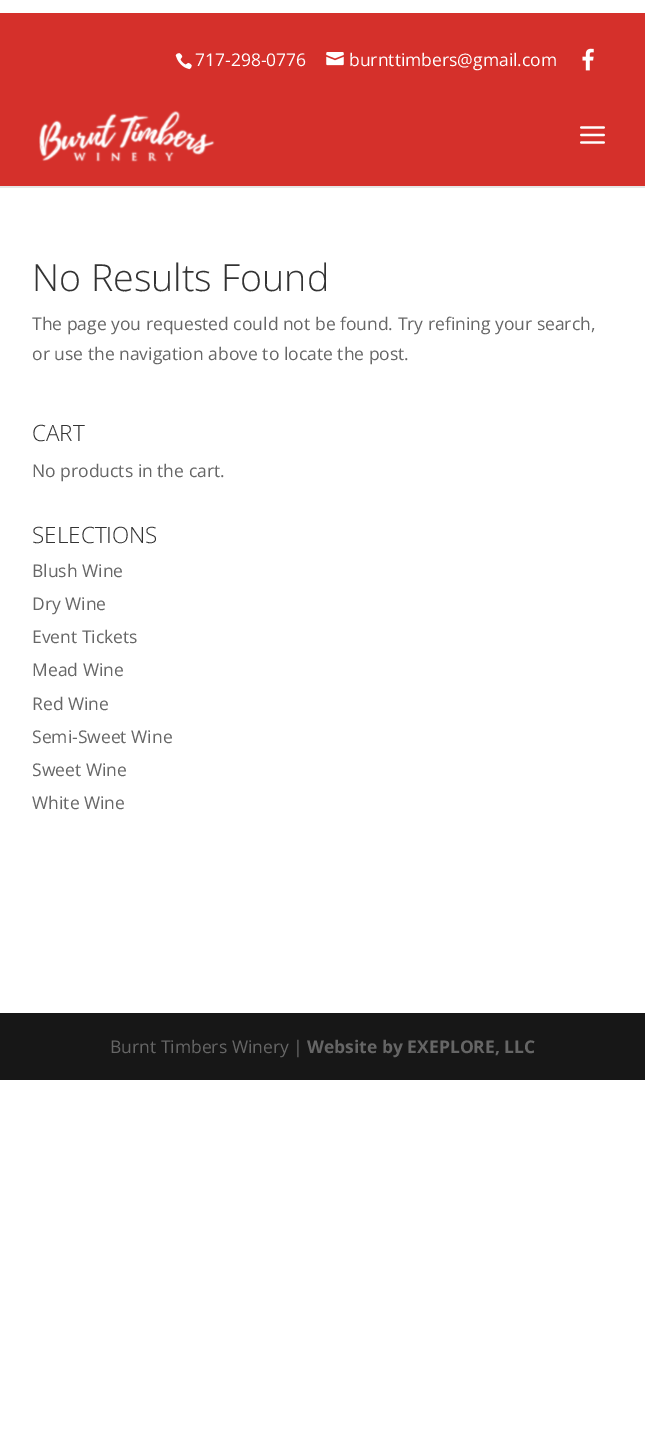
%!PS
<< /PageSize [645 1443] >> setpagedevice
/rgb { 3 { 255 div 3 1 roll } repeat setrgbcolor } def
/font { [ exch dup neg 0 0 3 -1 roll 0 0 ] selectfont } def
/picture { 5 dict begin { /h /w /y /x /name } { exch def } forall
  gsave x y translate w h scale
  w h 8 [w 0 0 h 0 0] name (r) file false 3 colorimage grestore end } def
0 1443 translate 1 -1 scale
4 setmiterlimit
255 255 255 rgb
0 0 645 1443 rectfill
230 230 230 rgb
0 186 645 2 rectfill
213 48 43 rgb
0 13 645 173 rectfill
(img/1.rgb) 175 53 17 17 picture
(img/2.rgb) 326 52 18 14 picture
(img/3.rgb) 582 48 12 23 picture
(img/4.rgb) 39 110 176 53 picture
(img/5.rgb) 580 126 25 18 picture
23 23 23 rgb
0 1013 645 67 rectfill
/OpenSans-Regular 17.5 font
255 255 255 rgb
195 66 moveto (717-298-0776) show
349 66 moveto (burnttimbers@gmail.com) show
/OpenSans-Light 37.5 font
51 51 51 rgb
32 291 moveto (No Results Found) show
/OpenSans-Regular 17.5 font
102 102 102 rgb
32 330 moveto (The page you requested could not be found. Try refining your search,) show
32 360 moveto (or use the navigation above to locate the post.) show
/OpenSans-Light 22.5 font
51 51 51 rgb
32 441 moveto (CART) show
/OpenSans-Regular 17.5 font
102 102 102 rgb
32 477 moveto (No products in the cart.) show
/OpenSans-Light 22.5 font
51 51 51 rgb
32 543 moveto (SELECTIONS) show
/OpenSans-Regular 17.5 font
102 102 102 rgb
[
  [(Blush Wine) 32 577]
  [(Dry Wine) 32 610]
  [(Event Tickets) 32 643]
  [(Mead Wine) 32 676]
  [(Red Wine) 32 710]
  [(Semi-Sweet Wine) 32 743]
  [(Sweet Wine) 32 776]
  [(White Wine) 32 809]
  [(Burnt Timbers Winery |) 110 1053]
] { aload pop moveto show } forall
/OpenSans-Bold 17.5 font
307 1053 moveto (Website by EXEPLORE, LLC) show
showpage
